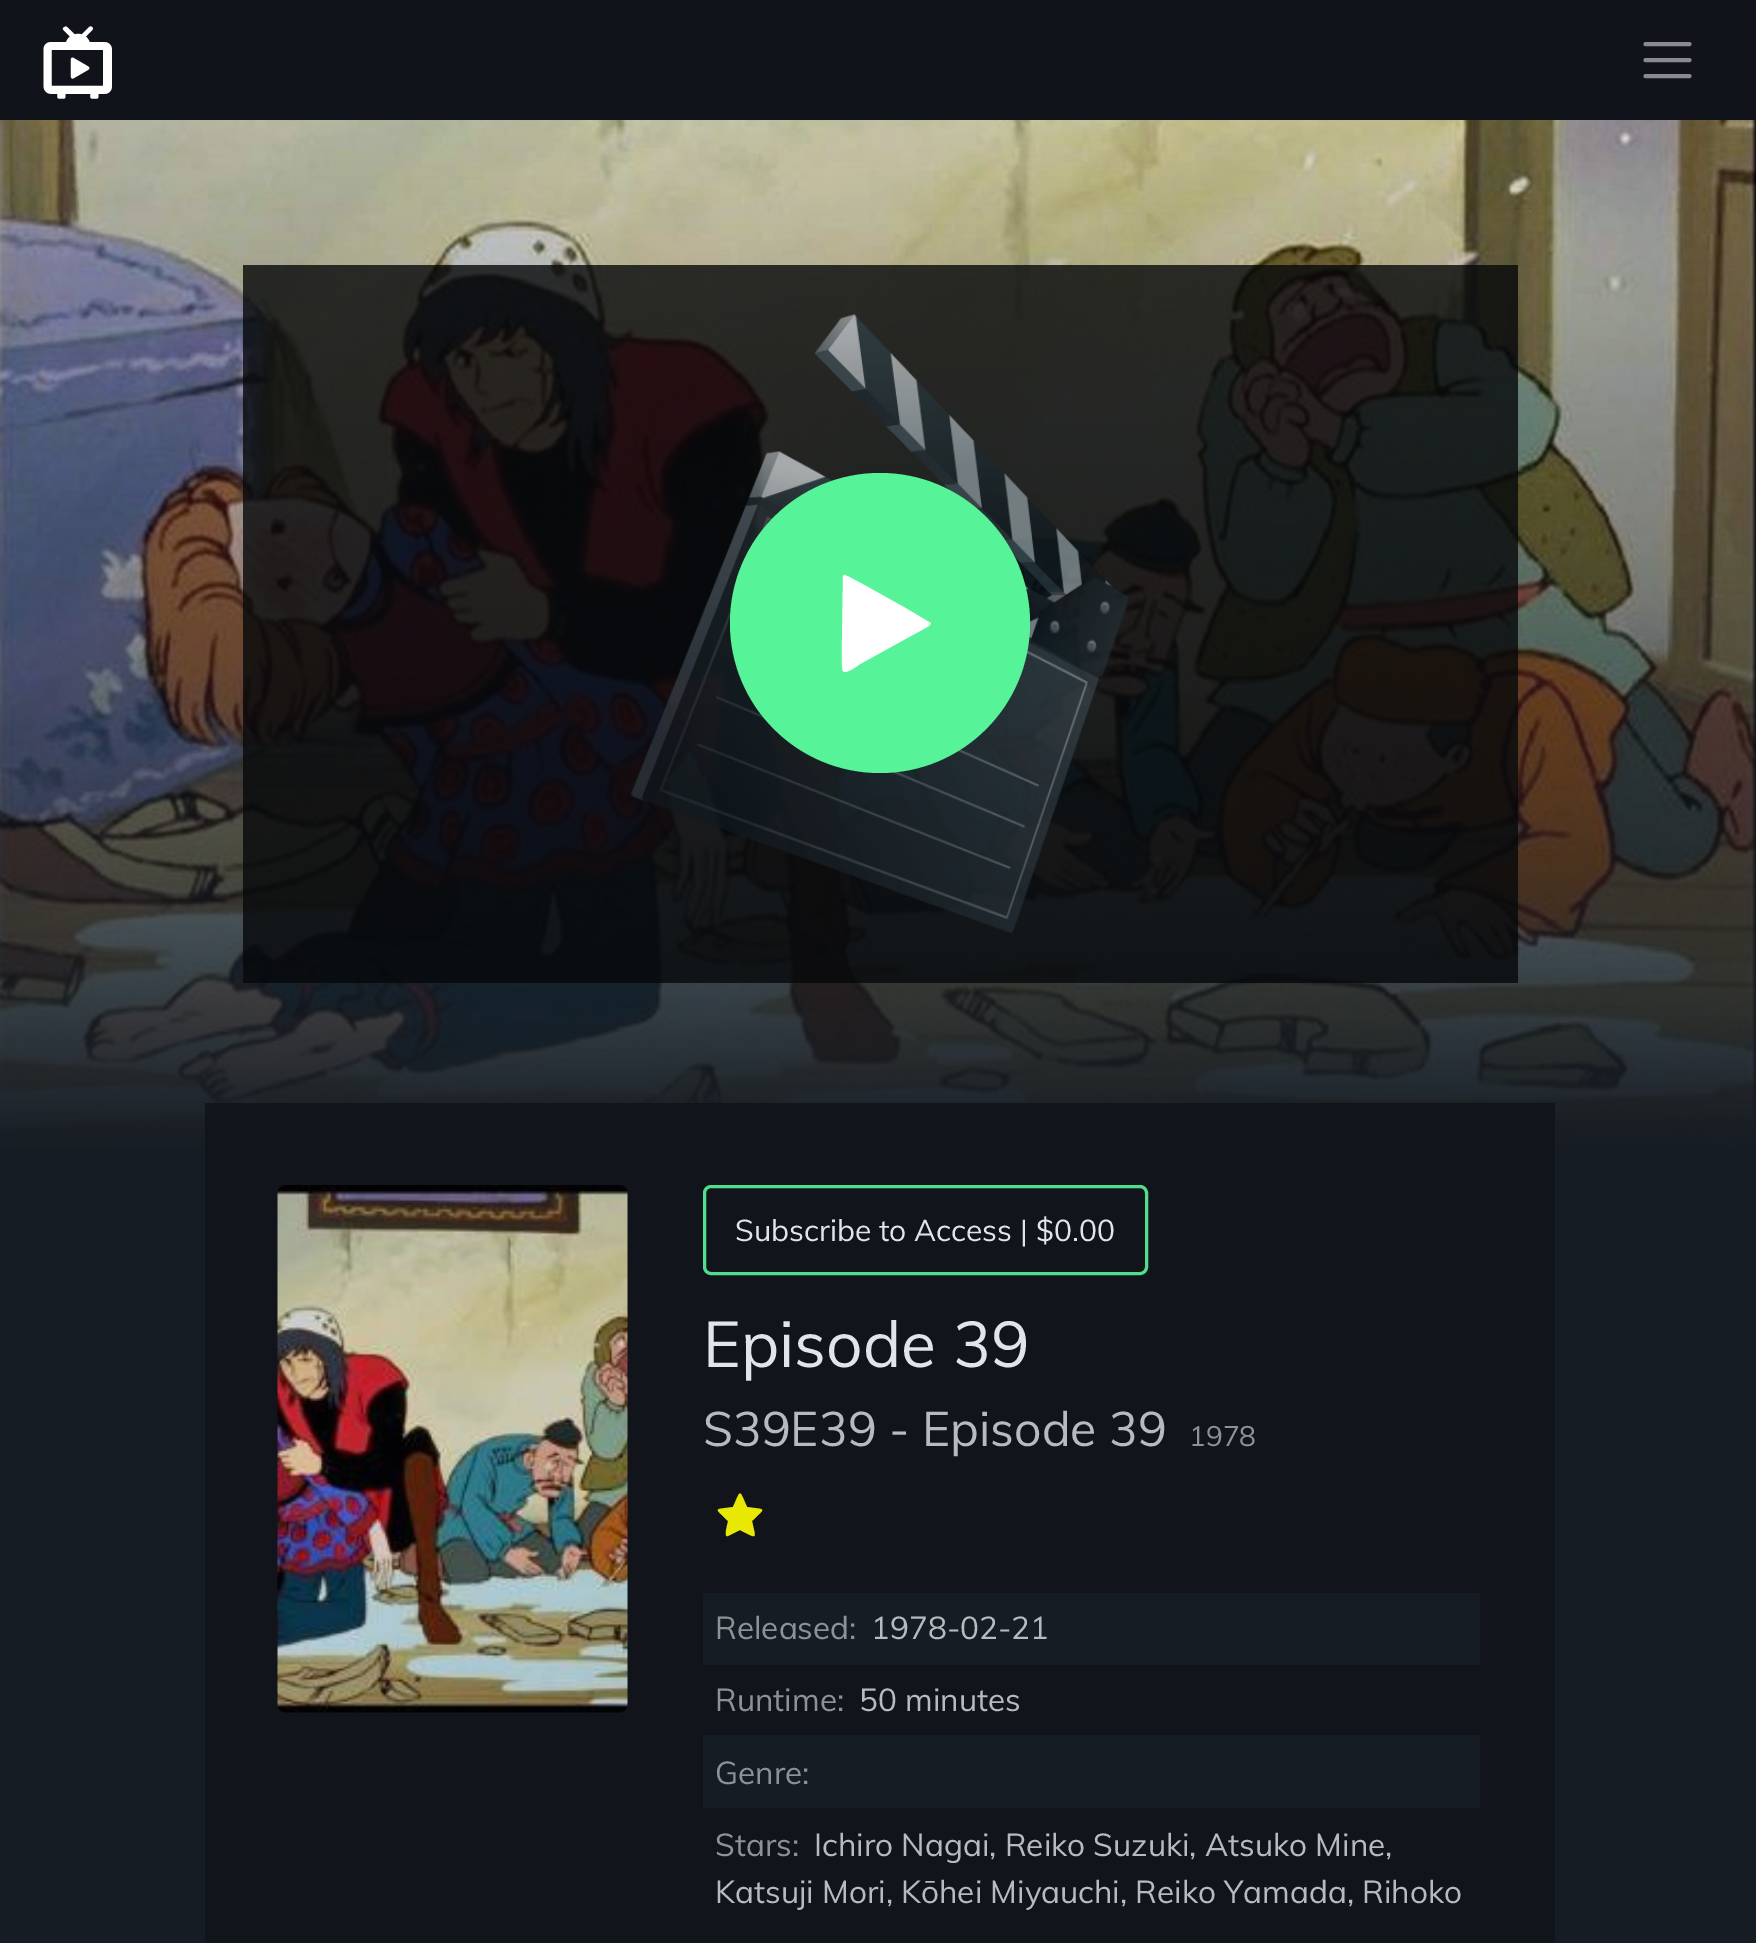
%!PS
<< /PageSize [1756 1943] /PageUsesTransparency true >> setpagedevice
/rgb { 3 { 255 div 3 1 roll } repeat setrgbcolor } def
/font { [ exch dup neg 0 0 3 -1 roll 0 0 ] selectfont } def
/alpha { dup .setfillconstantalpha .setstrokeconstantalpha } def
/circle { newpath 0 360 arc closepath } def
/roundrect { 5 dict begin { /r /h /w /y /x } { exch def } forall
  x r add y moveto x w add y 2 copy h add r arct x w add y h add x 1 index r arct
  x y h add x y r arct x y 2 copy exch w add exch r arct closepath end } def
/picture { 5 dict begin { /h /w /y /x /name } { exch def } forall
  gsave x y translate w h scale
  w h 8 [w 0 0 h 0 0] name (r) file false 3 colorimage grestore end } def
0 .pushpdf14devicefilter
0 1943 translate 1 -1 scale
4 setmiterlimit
22 28 35 rgb
0 0 1756 1943 rectfill
16 20 26 rgb
0 0 1756 120 rectfill
(img/1.rgb) 43 26 69 73 picture
136 138 141 rgb
4 setlinewidth
1 setlinecap
1645.5 44 moveto 1689.5 44 lineto 1645.5 60 moveto 1689.5 60 lineto 1645.5 76 moveto 1689.5 76 lineto stroke
(img/2.rgb) 0 120 1756 1030 picture
0.8 alpha
6 8 10 rgb
243 265 1275 718 rectfill
1 alpha
(img/3.rgb) 631 314 498 619 picture
(img/4.rgb) 631 314 498 619 picture
87 243 152 rgb
880 623 150 circle fill
255 255 255 rgb
929 626 moveto 860 664 lineto 859 665 845 675 843 671 curveto 841 669 842 642 842 639 curveto 843 576 lineto 844 575 lineto 846 574 896 603 902 606 curveto 929 622 lineto 931 623 lineto 931 624 930 625 929 626 curveto closepath fill
0.9 alpha
16 20 26 rgb
205 1103 1350 840 rectfill
1 alpha
(img/5.rgb) 277 1185 351 528 picture
81 222 140 rgb
3 setlinewidth
0 setlinecap
704.5 1186.5 442 87 6.5 roundrect stroke
232 232 4 rgb
728 1536 moveto 723 1538 728 1523 728 1521 curveto 714 1507 713 1510 733 1507 curveto 741 1489 739 1489 747 1507 curveto 767 1510 766 1507 752 1521 curveto 756 1540 758 1539 740 1530 curveto closepath fill
22 28 35 rgb
703 1593 777 72 rectfill
703 1735 777 73 rectfill
/Muli-Regular 30 font
225 229 233 rgb
735 1241 moveto (Subscribe to Access | $0.00) show
/Muli-Regular 64 font
703 1367 moveto (Episode 39) show
/Muli-Regular 48 font
183 187 192 rgb
703 1446 moveto (S39E39 - Episode 39) show
/Muli-Regular 28 font
142 146 151 rgb
1189 1446 moveto (1978) show
/Muli-Regular 31.5 font
715 1639 moveto (Released:) show
183 187 192 rgb
871 1639 moveto (1978-02-21) show
142 146 151 rgb
715 1711 moveto (Runtime:) show
183 187 192 rgb
859 1711 moveto (50 minutes) show
142 146 151 rgb
715 1784 moveto (Genre:) show
715 1856 moveto (Stars:) show
183 187 192 rgb
814 1856 moveto (Ichiro Nagai, Reiko Suzuki, Atsuko Mine,) show
715 1903 moveto (Katsuji Mori, Kōhei Miyauchi, Reiko Yamada, Rihoko) show
.poppdf14devicefilter showpage
